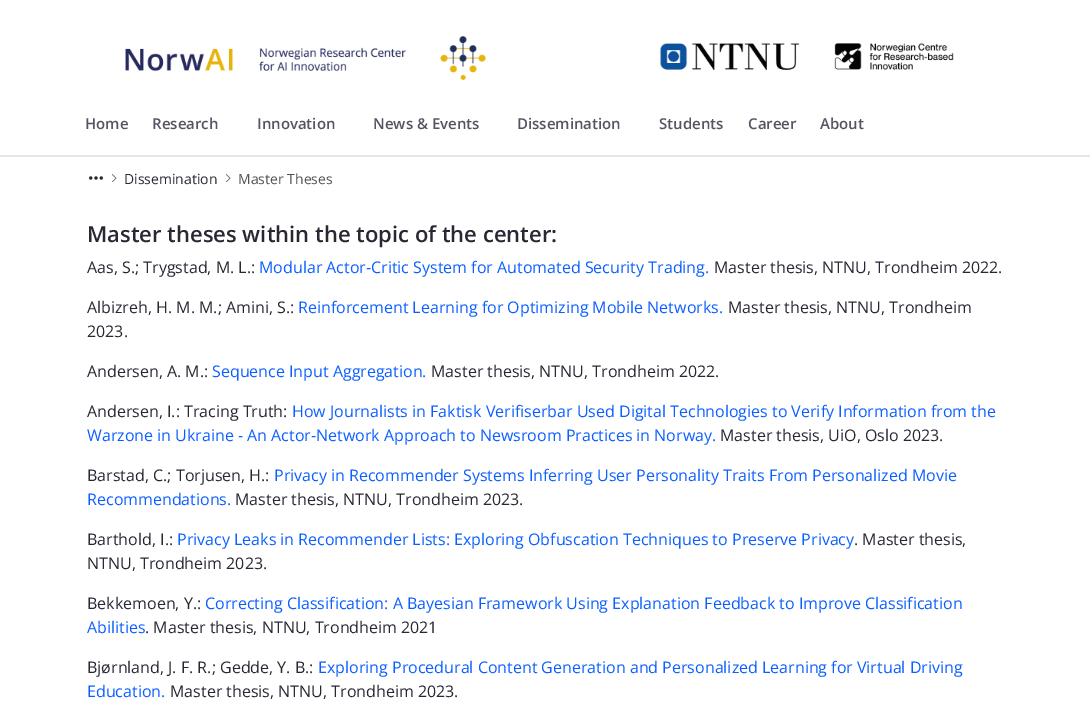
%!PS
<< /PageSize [1090 728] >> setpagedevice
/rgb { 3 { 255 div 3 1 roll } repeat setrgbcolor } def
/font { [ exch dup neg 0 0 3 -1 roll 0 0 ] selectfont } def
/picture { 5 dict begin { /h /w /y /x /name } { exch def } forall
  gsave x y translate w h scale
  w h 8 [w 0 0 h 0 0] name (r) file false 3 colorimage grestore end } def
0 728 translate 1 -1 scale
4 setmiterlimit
255 255 255 rgb
0 0 1090 728 rectfill
228 228 228 rgb
0 156 1090 1 rectfill
231 231 237 rgb
0 155 1090 1 rectfill
(img/1.rgb) 125 36 829 44 picture
(img/2.rgb) 89 176 14 4 picture
(img/3.rgb) 111 174 6 8 picture
(img/3.rgb) 225 174 6 8 picture
/OpenSans-SemiBold 15 font
84 84 99 rgb
[
  [(Home) 85 129]
  [(Research) 152 129]
  [(Innovation) 257 129]
  [(News & Events) 373 129]
  [(Dissemination) 517 129]
  [(Students) 659 129]
  [(Career) 748 129]
  [(About) 820 129]
] { aload pop moveto show } forall
/OpenSans-Regular 14 font
39 40 51 rgb
124 184 moveto (Dissemination) show
82 82 82 rgb
238 184 moveto (Master Theses) show
/OpenSans-SemiBold 22 font
39 40 51 rgb
87 242 moveto (Master theses within the topic of the center:) show
/OpenSans-Regular 16 font
87 273 moveto (Aas, S.; Trygstad, M. L.:) show
11 95 255 rgb
259 273 moveto (Modular Actor-Critic System for Automated Security Trading.) show
39 40 51 rgb
714 273 moveto (Master thesis, NTNU, Trondheim 2022.) show
87 313 moveto (Albizreh, H. M. M.; Amini, S.:) show
11 95 255 rgb
298 313 moveto (Reinforcement Learning for Optimizing Mobile Networks.) show
39 40 51 rgb
[
  [(Master thesis, NTNU, Trondheim) 728 313]
  [(2023.) 87 337]
  [(Andersen, A. M.:) 87 377]
] { aload pop moveto show } forall
11 95 255 rgb
212 377 moveto (Sequence Input Aggregation.) show
39 40 51 rgb
431 377 moveto (Master thesis, NTNU, Trondheim 2022.) show
87 417 moveto (Andersen, I.: Tracing Truth:) show
11 95 255 rgb
292 417 moveto (How Journalists in Faktisk Verifiserbar Used Digital Technologies to Verify Information from the) show
87 441 moveto (Warzone in Ukraine - An Actor-Network Approach to Newsroom Practices in Norway.) show
39 40 51 rgb
720 441 moveto (Master thesis, UiO, Oslo 2023.) show
87 481 moveto (Barstad, C.; Torjusen, H.:) show
11 95 255 rgb
274 481 moveto (Privacy in Recommender Systems Inferring User Personality Traits From Personalized Movie) show
87 505 moveto (Recommendations.) show
39 40 51 rgb
235 505 moveto (Master thesis, NTNU, Trondheim 2023.) show
87 545 moveto (Barthold, I.:) show
11 95 255 rgb
177 545 moveto (Privacy Leaks in Recommender Lists: Exploring Obfuscation Techniques to Preserve Privacy) show
39 40 51 rgb
[
  [(. Master thesis,) 854 545]
  [(NTNU, Trondheim 2023.) 87 569]
  [(Bekkemoen, Y.:) 87 609]
] { aload pop moveto show } forall
11 95 255 rgb
205 609 moveto (Correcting Classification: A Bayesian Framework Using Explanation Feedback to Improve Classification) show
87 633 moveto (Abilities) show
39 40 51 rgb
145 633 moveto (. Master thesis, NTNU, Trondheim 2021) show
87 673 moveto (Bjørnland, J. F. R.; Gedde, Y. B.:) show
11 95 255 rgb
318 673 moveto (Exploring Procedural Content Generation and Personalized Learning for Virtual Driving) show
87 697 moveto (Education.) show
39 40 51 rgb
170 697 moveto (Master thesis, NTNU, Trondheim 2023.) show
showpage
